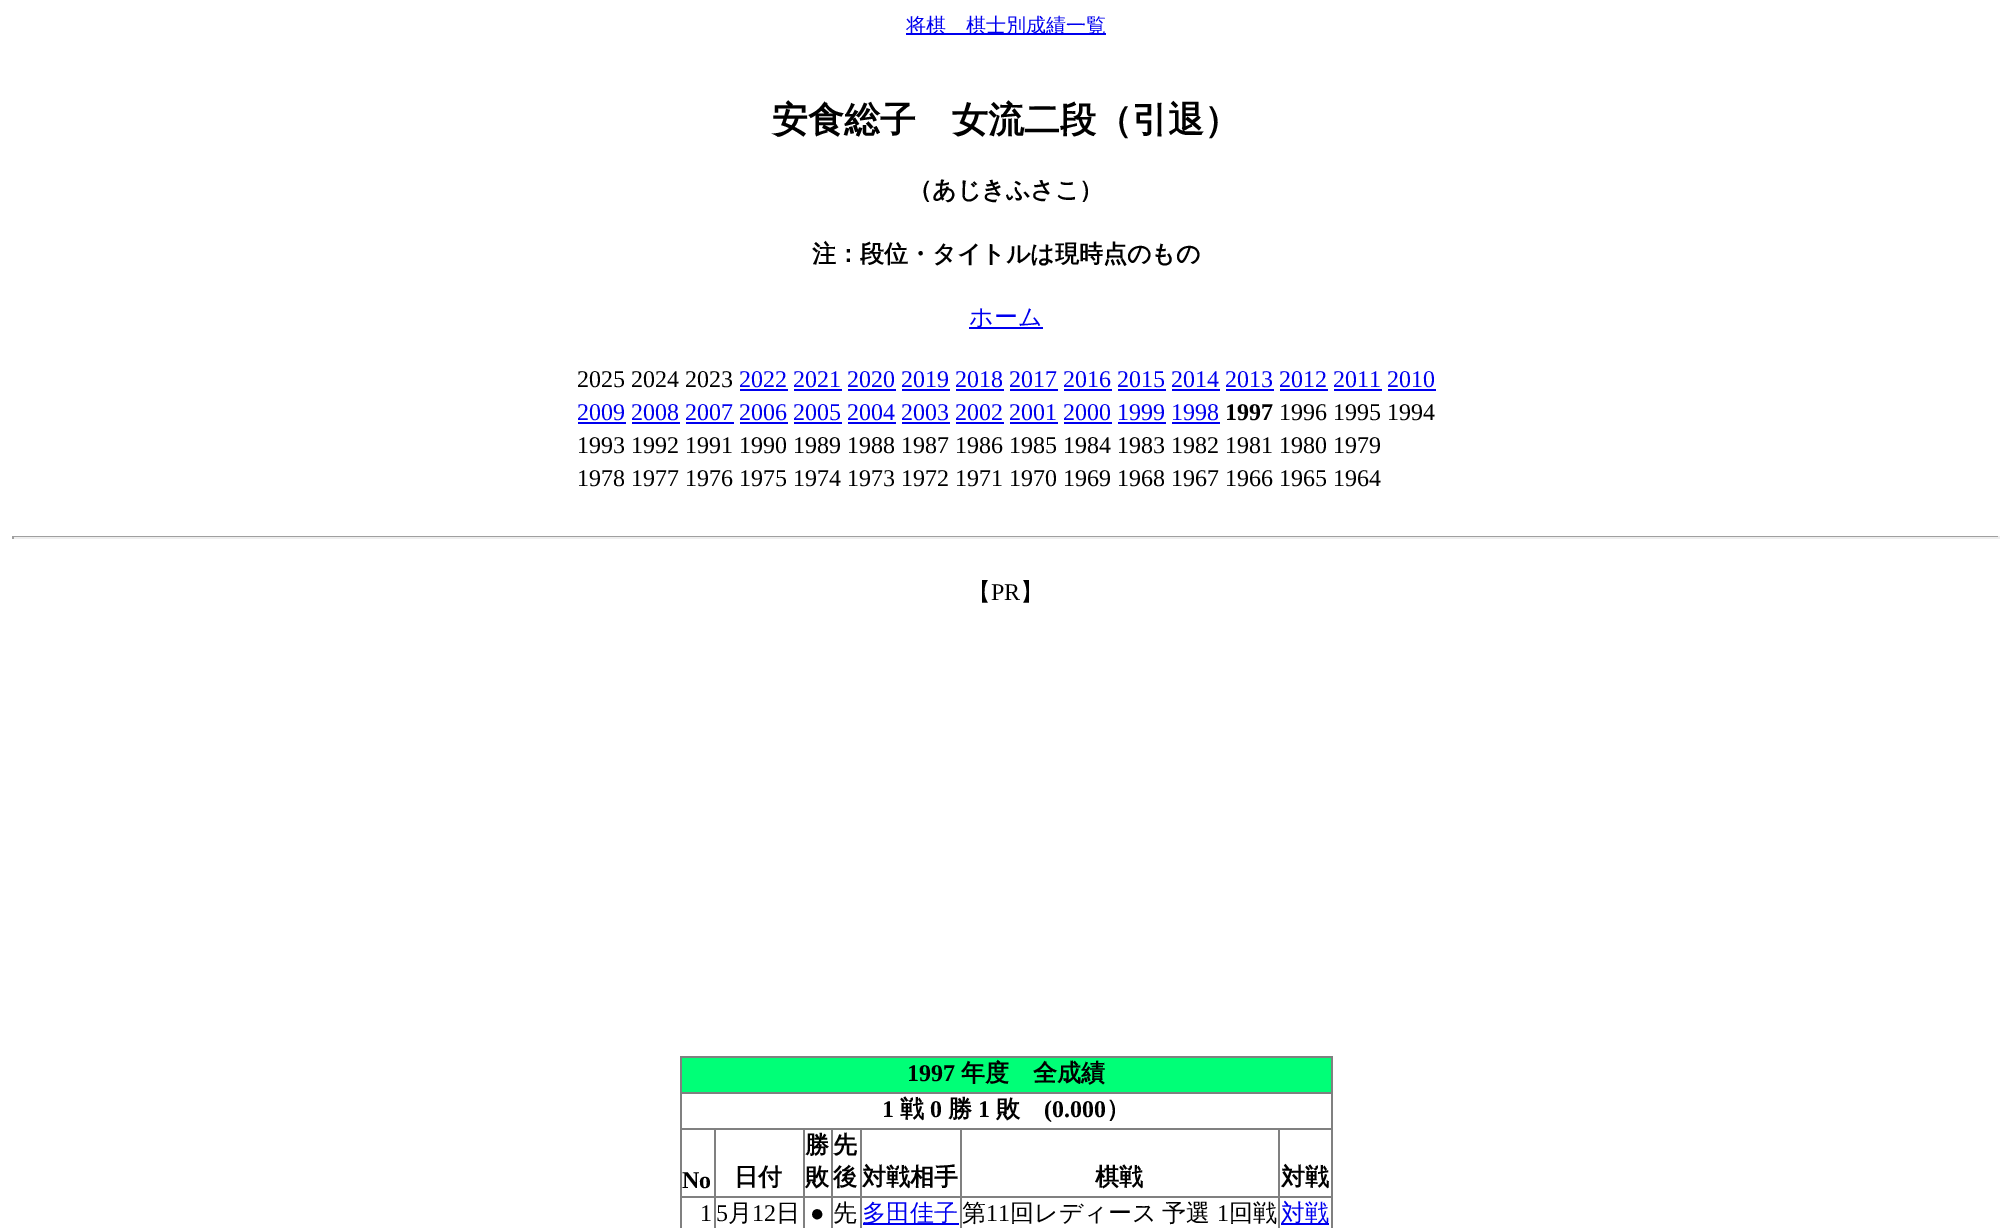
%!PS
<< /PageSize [2011 1228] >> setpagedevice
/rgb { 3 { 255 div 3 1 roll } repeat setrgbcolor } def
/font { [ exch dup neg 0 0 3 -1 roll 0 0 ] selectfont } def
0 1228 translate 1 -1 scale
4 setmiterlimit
255 255 255 rgb
0 0 2011 1228 rectfill
[
  [906 33 200 2 0 0 238]
  [969 327 74 2 0 0 238]
  [740 389 48 2 0 0 238]
  [794 389 48 2 0 0 238]
  [848 389 48 2 0 0 238]
  [902 389 48 2 0 0 238]
  [956 389 48 2 0 0 238]
  [1010 389 48 2 0 0 238]
  [1064 389 48 2 0 0 238]
  [1118 389 48 2 0 0 238]
  [1172 389 48 2 0 0 238]
  [1226 389 48 2 0 0 238]
  [1280 389 48 2 0 0 238]
  [1334 389 48 2 0 0 238]
  [1388 389 48 2 0 0 238]
  [578 422 48 2 0 0 238]
  [632 422 48 2 0 0 238]
  [686 422 48 2 0 0 238]
  [740 422 48 2 0 0 238]
  [794 422 48 2 0 0 238]
  [848 422 48 2 0 0 238]
  [902 422 48 2 0 0 238]
  [956 422 48 2 0 0 238]
  [1010 422 48 2 0 0 238]
  [1064 422 48 2 0 0 238]
  [1118 422 48 2 0 0 238]
  [1172 422 48 2 0 0 238]
  [12 536 1988 1 159 159 159]
  [1998 536 2 3 238 238 238]
  [12 537 1988 2 238 238 238]
  [12 536 2 3 159 159 159]
  [680 1056 652 2 128 128 128]
  [1331 1056 2 172 128 128 128]
  [680 1056 2 172 128 128 128]
  [682 1058 649 34 0 255 119]
  [680 1092 652 2 128 128 128]
  [1278 1128 54 2 128 128 128]
  [1278 1196 54 2 128 128 128]
  [1278 1196 2 32 128 128 128]
  [960 1196 320 2 128 128 128]
  [1278 1128 2 69 128 128 128]
  [960 1128 320 2 128 128 128]
  [960 1196 2 32 128 128 128]
  [860 1196 102 2 128 128 128]
  [960 1128 2 69 128 128 128]
  [860 1128 102 2 128 128 128]
  [860 1196 2 32 128 128 128]
  [831 1196 30 2 128 128 128]
  [860 1128 2 69 128 128 128]
  [831 1128 30 2 128 128 128]
  [831 1196 2 32 128 128 128]
  [803 1196 30 2 128 128 128]
  [831 1128 2 69 128 128 128]
  [803 1128 30 2 128 128 128]
  [803 1196 2 32 128 128 128]
  [714 1196 90 2 128 128 128]
  [803 1128 2 69 128 128 128]
  [714 1128 90 2 128 128 128]
  [714 1196 2 32 128 128 128]
  [680 1196 36 2 128 128 128]
  [714 1128 2 69 128 128 128]
  [680 1128 36 2 128 128 128]
  [863 1223 96 2 0 0 238]
  [1281 1223 48 2 0 0 238]
] { aload pop rgb rectfill } forall
/WenQuanYiZenHei-Medium 20 font
906 32 moveto (将棋　棋士別成績一覧) show
/WenQuanYiZenHei-Bold 36 font
0 0 0 rgb
772 132 moveto (安食総子　女流二段（引退）) show
/WenQuanYiZenHei-Bold 24 font
908 198 moveto (（あじきふさこ）) show
812 262 moveto (注：段位・タイトルは現時点のもの) show
/WenQuanYiZenHei-Medium 24 font
0 0 238 rgb
969 325 moveto (ホーム) show
/LiberationSerif-Regular 24 font
0 0 0 rgb
577 387 moveto (2025 2024 2023) show
0 0 238 rgb
739 387 moveto (2022 2021 2020 2019 2018 2017 2016 2015 2014 2013 2012 2011 2010) show
577 420 moveto (2009 2008 2007 2006 2005 2004 2003 2002 2001 2000 1999 1998) show
/LiberationSerif-Bold 24 font
0 0 0 rgb
1225 420 moveto (1997) show
/LiberationSerif-Regular 24 font
[
  [(1996 1995 1994) 1279 420]
  [(1993 1992 1991 1990 1989 1988 1987 1986 1985 1984 1983 1982 1981 1980 1979) 577 453]
  [(1978 1977 1976 1975 1974 1973 1972 1971 1970 1969 1968 1967 1966 1965 1964) 577 486]
] { aload pop moveto show } forall
/WenQuanYiZenHei-Medium 24 font
967 600 moveto (【) show
/LiberationSerif-Regular 24 font
991 600 moveto (PR) show
/WenQuanYiZenHei-Medium 24 font
1020 600 moveto (】) show
/LiberationSerif-Bold 24 font
907 1081 moveto (1997) show
/WenQuanYiZenHei-Bold 24 font
961 1081 moveto (年度　全成績) show
/LiberationSerif-Bold 24 font
882 1117 moveto (1) show
/WenQuanYiZenHei-Bold 24 font
900 1117 moveto (戦) show
/LiberationSerif-Bold 24 font
930 1117 moveto (0) show
/WenQuanYiZenHei-Bold 24 font
948 1117 moveto (勝) show
/LiberationSerif-Bold 24 font
978 1117 moveto (1) show
/WenQuanYiZenHei-Bold 24 font
996 1117 moveto (敗) show
/LiberationSerif-Bold 24 font
1044 1117 moveto (\(0.000) show
/WenQuanYiZenHei-Bold 24 font
1106 1117 moveto (）) show
/LiberationSerif-Bold 24 font
682 1188 moveto (No) show
/WenQuanYiZenHei-Bold 24 font
[
  [(日付) 734 1185]
  [(勝) 805 1153]
  [(敗) 805 1185]
  [(先) 833 1153]
  [(後) 833 1185]
  [(対戦相手) 862 1185]
  [(棋戦) 1095 1185]
  [(対戦) 1281 1185]
] { aload pop moveto show } forall
/LiberationSerif-Regular 24 font
700 1221 moveto (1) show
716 1221 moveto (5) show
/WenQuanYiZenHei-Medium 24 font
728 1221 moveto (月) show
/LiberationSerif-Regular 24 font
752 1221 moveto (12) show
/WenQuanYiZenHei-Medium 24 font
776 1221 moveto (日) show
/LiberationSerif-Regular 24 font
810 1221 moveto (●) show
/WenQuanYiZenHei-Medium 24 font
833 1221 moveto (先) show
0 0 238 rgb
862 1221 moveto (多田佳子) show
0 0 0 rgb
962 1221 moveto (第) show
/LiberationSerif-Regular 24 font
986 1221 moveto (11) show
/WenQuanYiZenHei-Medium 24 font
1010 1221 moveto -1 0 32 (回レディース 予選) widthshow
/LiberationSerif-Regular 24 font
1217 1221 moveto (1) show
/WenQuanYiZenHei-Medium 24 font
1229 1221 moveto (回戦) show
0 0 238 rgb
1281 1221 moveto (対戦) show
showpage
